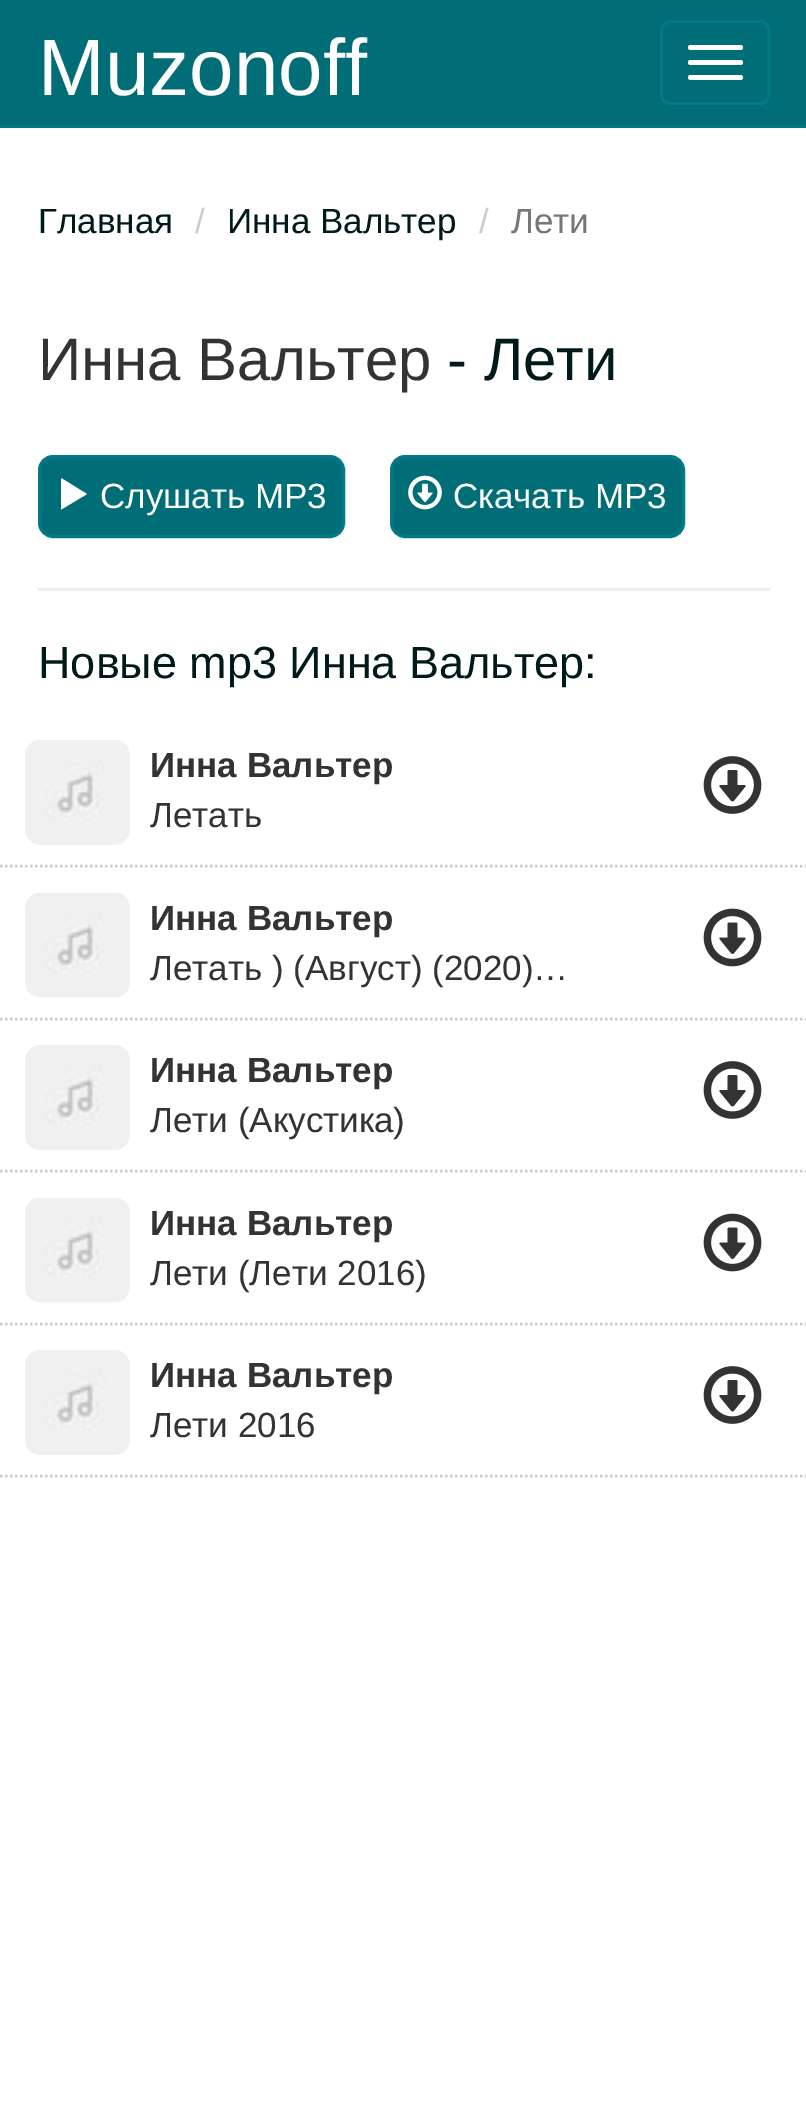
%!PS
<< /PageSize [806 2116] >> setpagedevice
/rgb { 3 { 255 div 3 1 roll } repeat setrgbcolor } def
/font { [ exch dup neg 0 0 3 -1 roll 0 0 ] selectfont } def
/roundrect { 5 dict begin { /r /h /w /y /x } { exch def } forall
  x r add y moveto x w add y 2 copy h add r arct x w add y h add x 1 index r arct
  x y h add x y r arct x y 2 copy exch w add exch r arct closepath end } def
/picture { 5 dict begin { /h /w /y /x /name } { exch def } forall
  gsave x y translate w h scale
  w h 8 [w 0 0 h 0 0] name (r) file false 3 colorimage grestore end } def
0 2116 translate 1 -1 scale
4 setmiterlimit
255 255 255 rgb
0 0 806 2116 rectfill
0 109 119 rgb
0 0 806 125 rectfill
0 123 134 rgb
0 125 806 3 rectfill
3 setlinewidth
661.5 21.5 107 82 8.5 roundrect stroke
255 255 255 rgb
688 45 55 5 2.5 roundrect fill
688 60 55 5 2.5 roundrect fill
688 75 55 5 2.5 roundrect fill
0 109 119 rgb
39.5 456.5 304 80 13.5 roundrect gsave fill grestore
0 123 134 rgb
stroke
255 255 255 rgb
62 478.5 moveto 82 491 lineto 88 494.5 88 493.5 82 497 curveto 62 509 lineto 61 509.5 lineto 61 479 lineto 61 478.5 61.5 478.5 62 478.5 curveto closepath fill
0 109 119 rgb
391.5 456.5 292 80 13.5 roundrect gsave fill grestore
0 123 134 rgb
stroke
(img/1.rgb) 408 475 34 35 picture
238 238 238 rgb
38 588 732 3 rectfill
204 204 204 rgb
2.5 setlinewidth
[2.5 2.5] 0 setdash
0 866 moveto 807.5 866 lineto stroke
(img/2.rgb) 25 740 105 105 picture
(img/3.rgb) 703 756 59 58 picture
0 1019 moveto 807.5 1019 lineto stroke
(img/4.rgb) 25 892 105 106 picture
(img/5.rgb) 703 908 59 59 picture
0 1171 moveto 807.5 1171 lineto stroke
(img/2.rgb) 25 1045 105 105 picture
(img/3.rgb) 703 1061 59 58 picture
0 1324 moveto 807.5 1324 lineto stroke
(img/4.rgb) 25 1197 105 106 picture
(img/5.rgb) 703 1213 59 59 picture
0 1476 moveto 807.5 1476 lineto stroke
(img/2.rgb) 25 1350 105 105 picture
(img/3.rgb) 703 1366 59 58 picture
/LiberationSans-Regular 80 font
255 255 255 rgb
38 95 moveto (Muzonoff) show
/LiberationSans-Regular 35 font
0 26 28 rgb
38 233 moveto (Главная) show
204 204 204 rgb
195 233 moveto (/) show
0 26 28 rgb
227 233 moveto (Инна Вальтер) show
204 204 204 rgb
479 233 moveto (/) show
119 119 119 rgb
511 233 moveto (Лети) show
/LiberationSans-Regular 60 font
51 51 51 rgb
38 380 moveto (Инна Вальтер) show
0 26 28 rgb
447 380 moveto (- Лети) show
/LiberationSans-Regular 35 font
255 255 255 rgb
100 508 moveto (Слушать MP3) show
453 508 moveto (Скачать MP3) show
/LiberationSans-Regular 45 font
0 26 28 rgb
38 678 moveto (Новые mp3 Инна Вальтер:) show
/LiberationSans-Bold 35 font
51 51 51 rgb
150 777 moveto (Инна Вальтер) show
/LiberationSans-Regular 35 font
150 827 moveto (Летать) show
/LiberationSans-Bold 35 font
150 930 moveto (Инна Вальтер) show
/LiberationSans-Regular 35 font
150 980 moveto (Летать \) \(Август\) \(2020\)…) show
/LiberationSans-Bold 35 font
150 1082 moveto (Инна Вальтер) show
/LiberationSans-Regular 35 font
150 1132 moveto (Лети \(Акустика\)) show
/LiberationSans-Bold 35 font
150 1235 moveto (Инна Вальтер) show
/LiberationSans-Regular 35 font
150 1285 moveto (Лети \(Лети 2016\)) show
/LiberationSans-Bold 35 font
150 1387 moveto (Инна Вальтер) show
/LiberationSans-Regular 35 font
150 1437 moveto (Лети 2016) show
showpage
